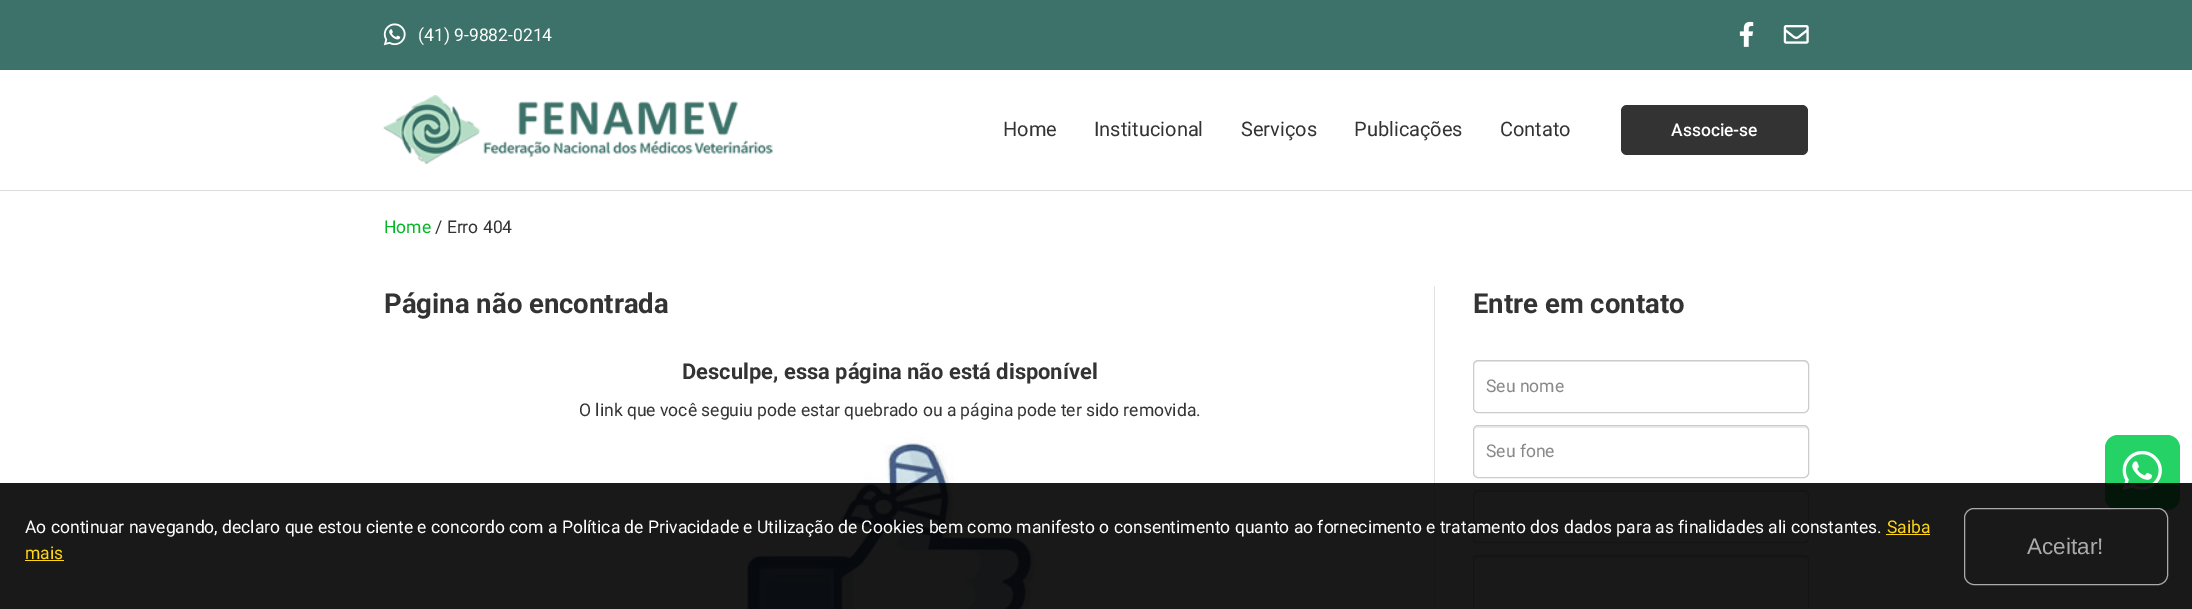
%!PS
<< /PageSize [2192 609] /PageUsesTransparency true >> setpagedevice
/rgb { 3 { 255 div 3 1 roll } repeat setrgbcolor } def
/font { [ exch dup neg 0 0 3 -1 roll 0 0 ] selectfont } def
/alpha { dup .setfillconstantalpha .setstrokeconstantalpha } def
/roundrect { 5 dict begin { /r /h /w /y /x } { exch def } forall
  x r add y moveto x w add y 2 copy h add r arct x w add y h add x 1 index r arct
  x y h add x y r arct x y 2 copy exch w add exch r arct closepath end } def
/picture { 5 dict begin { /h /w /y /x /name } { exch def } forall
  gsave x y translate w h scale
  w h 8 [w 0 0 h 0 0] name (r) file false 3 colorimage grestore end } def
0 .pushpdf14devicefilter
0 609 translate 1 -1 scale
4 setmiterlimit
255 255 255 rgb
0 0 2192 609 rectfill
60 114 105 rgb
0 0 2192 70 rectfill
(img/1.rgb) 383 23 23 23 picture
(img/2.rgb) 1739 21 15 26 picture
(img/3.rgb) 1783 25 26 19 picture
221 221 221 rgb
0 190 2192 1 rectfill
(img/4.rgb) 383 95 390 69 picture
51 51 51 rgb
1621 105 187 50 6 roundrect fill
(img/5.rgb) 744 437 293 172 picture
225 225 225 rgb
1434 286 1 323 rectfill
236 236 236 rgb
1478 362 moveto 1804 362 lineto 1806 362 1808 364 1808 366 curveto 1808 363 1807 361 1804 361 curveto 1478 361 lineto 1475 361 1474 363 1474 366 curveto 1474 364 1475 362 1478 362 curveto closepath fill
204 204 204 rgb
1473.5 360.5 335 52 4.5 roundrect stroke
236 236 236 rgb
1478 428 moveto 1804 428 lineto 1806 428 1808 429 1808 431 curveto 1808 428 1807 426 1804 426 curveto 1478 426 lineto 1475 426 1474 428 1474 431 curveto 1474 429 1475 428 1478 428 curveto closepath fill
204 204 204 rgb
1473.5 425.5 335 52 4.5 roundrect stroke
236 236 236 rgb
1478 492 moveto 1804 492 lineto 1806 492 1808 494 1808 496 curveto 1808 493 1807 491 1804 491 curveto 1478 491 lineto 1475 491 1474 493 1474 496 curveto 1474 494 1475 492 1478 492 curveto closepath fill
204 204 204 rgb
1473.5 490.5 335 52 4.5 roundrect stroke
236 236 236 rgb
1478 558 moveto 1804 558 lineto 1806 558 1808 559 1808 561 curveto 1808 558 1807 556 1804 556 curveto 1478 556 lineto 1475 556 1474 558 1474 561 curveto 1474 559 1475 558 1478 558 curveto closepath fill
204 204 204 rgb
1473.5 555.5 335 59 4.5 roundrect stroke
37 210 102 rgb
2105 435 75 75 13 roundrect fill
(img/6.rgb) 2122 450 40 41 picture
0.9 alpha
[
  [0 483 2192 126 0 0 0]
] { aload pop rgb rectfill } forall
1 alpha
[
  [1886 534 44 1 255 214 19]
  [25 560 39 1 255 214 19]
] { aload pop rgb rectfill } forall
170 170 170 rgb
1964.5 508.5 203 76 9.5 roundrect stroke
/Roboto-Regular 17.5 font
255 255 255 rgb
418 41 moveto (\(41\) 9-9882-0214) show
/Roboto-Regular 20 font
51 51 51 rgb
[
  [(Home) 1003 136]
  [(Institucional) 1094 136]
  [(Serviços) 1241 136]
  [(Publicações) 1354 136]
  [(Contato) 1500 136]
] { aload pop moveto show } forall
/Roboto-Medium 17.5 font
255 255 255 rgb
1671 136 moveto (Associe-se) show
/Roboto-Regular 17.5 font
1 184 37 rgb
384 233 moveto (Home) show
51 51 51 rgb
435 233 moveto (/ Erro 404) show
/Roboto-Bold 27.5 font
384 313 moveto (Página não encontrada) show
/Roboto-Bold 21.9 font
682 379 moveto (Desculpe, essa página não está disponível) show
/Roboto-Regular 17.5 font
579 416 moveto (O link que você seguiu pode estar quebrado ou a página pode ter sido removida.) show
/Roboto-Bold 27.5 font
1473 313 moveto (Entre em contato) show
/Roboto-Regular 17.5 font
136 136 136 rgb
1486 392 moveto (Seu nome) show
1486 457 moveto (Seu fone) show
255 255 255 rgb
25 533 moveto (Ao continuar navegando, declaro que estou ciente e concordo com a Política de Privacidade e Utilização de Cookies bem como manifesto o consentimento quanto ao fornecimento e tratamento dos dados para as finalidades ali constantes.) show
255 214 19 rgb
1887 533 moveto (Saiba) show
25 559 moveto (mais) show
/LiberationSans-Regular 22.5 font
170 170 170 rgb
2027 554 moveto (Aceitar!) show
.poppdf14devicefilter showpage
